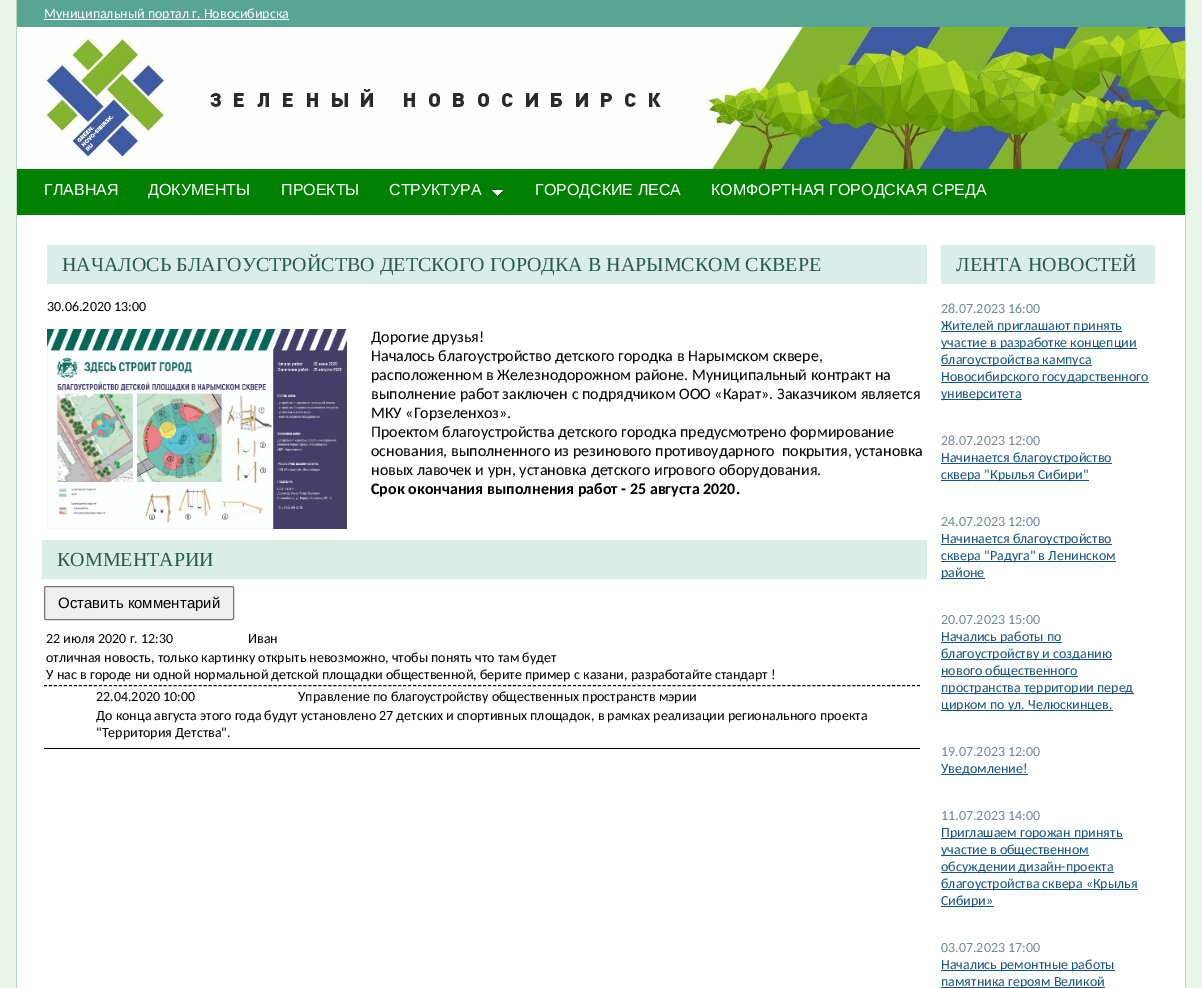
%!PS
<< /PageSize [1202 988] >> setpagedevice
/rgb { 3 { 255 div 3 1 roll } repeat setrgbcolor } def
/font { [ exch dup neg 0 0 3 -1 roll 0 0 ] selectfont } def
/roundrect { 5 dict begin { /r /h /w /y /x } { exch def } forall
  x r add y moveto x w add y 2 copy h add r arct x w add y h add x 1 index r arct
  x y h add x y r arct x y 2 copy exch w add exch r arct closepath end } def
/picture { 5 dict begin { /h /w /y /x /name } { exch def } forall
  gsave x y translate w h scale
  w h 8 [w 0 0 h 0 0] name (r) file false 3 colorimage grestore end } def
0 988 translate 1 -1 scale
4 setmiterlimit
233 245 233 rgb
0 0 1202 988 rectfill
[
  [17 27 1168 961 255 255 255]
  [1185 0 1 988 180 222 186]
  [16 0 1 988 180 222 186]
] { aload pop rgb rectfill } forall
(img/1.rgb) 33 27 1152 142 picture
[
  [17 0 1168 27 88 165 147]
  [44 19 245 1 255 255 255]
  [17 169 1168 46 0 128 0]
] { aload pop rgb rectfill } forall
(img/2.rgb) 491 188 14 9 picture
217 238 233 rgb
47 245 880 39 rectfill
(img/3.rgb) 47 329 300 200 picture
42 540 885 39 rectfill
239 239 239 rgb
44.5 586.5 189 33 1.5 roundrect gsave fill grestore
118 118 118 rgb
stroke
0 0 0 rgb
44 748 876 1 rectfill
[3 1.99] 0 setdash
44 685.5 moveto 920 685.5 lineto stroke
[
  [941 245 214 39 217 238 233]
  [941 331 181 1 24 83 125]
  [941 348 196 1 24 83 125]
  [941 365 151 1 24 83 125]
  [941 382 208 1 24 83 125]
  [941 399 81 1 24 83 125]
  [941 463 171 1 24 83 125]
  [941 480 148 1 24 83 125]
  [941 544 171 1 24 83 125]
  [941 561 175 1 24 83 125]
  [941 578 44 1 24 83 125]
  [941 642 121 1 24 83 125]
  [941 659 171 1 24 83 125]
  [941 676 137 1 24 83 125]
  [941 693 193 1 24 83 125]
  [941 710 172 1 24 83 125]
  [941 774 87 1 24 83 125]
  [941 838 182 1 24 83 125]
  [941 855 148 1 24 83 125]
  [941 872 173 1 24 83 125]
  [941 889 197 1 24 83 125]
  [941 906 53 1 24 83 125]
  [941 970 174 1 24 83 125]
  [941 987 164 1 24 83 125]
] { aload pop rgb rectfill } forall
/Carlito-Regular 14 font
255 255 255 rgb
44 18 moveto (Муниципальный портал г. Новосибирска) show
/LiberationSans-Regular 16 font
[
  [(ГЛАВНАЯ) 44 195]
  [(ДОКУМЕНТЫ) 148 195]
  [(ПРОЕКТЫ) 281 195]
  [(СТРУКТУРА) 389 195]
  [(ГОРОДСКИЕ ЛЕСА) 535 195]
  [(КОМФОРТНАЯ ГОРОДСКАЯ СРЕДА) 711 195]
] { aload pop moveto show } forall
/LiberationSerif-Regular 20 font
44 90 80 rgb
62 271 moveto (НАЧАЛОСЬ БЛАГОУСТРОЙСТВО ДЕТСКОГО ГОРОДКА В НАРЫМСКОМ СКВЕРЕ) show
/Carlito-Regular 14 font
0 0 0 rgb
47 311 moveto (30.06.2020 13:00) show
/Carlito-Regular 16 font
[
  [(Дорогие друзья!) 371 342]
  [(Началось благоустройство детского городка в Нарымском сквере,) 371 361]
  [(расположенном в Железнодорожном районе. Муниципальный контракт на) 371 380]
  [(выполнение работ заключен с подрядчиком ООО «Карат». Заказчиком является) 371 399]
  [(МКУ «Горзеленхоз».) 371 418]
  [(Проектом благоустройства детского городка предусмотрено формирование) 371 437]
  [(основания, выполненного из резинового противоударного  покрытия, установка) 371 456]
  [(новых лавочек и урн, установка детского игрового оборудования.) 371 475]
] { aload pop moveto show } forall
/Carlito-Bold 16 font
371 494 moveto (Срок окончания выполнения работ - 25 августа 2020.) show
/LiberationSerif-Regular 20 font
44 90 80 rgb
57 566 moveto (КОММЕНТАРИИ) show
/LiberationSans-Regular 15 font
0 0 0 rgb
58 608 moveto (Оставить комментарий) show
/Carlito-Regular 14 font
[
  [(22 июля 2020 г. 12:30) 46 643]
  [(Иван) 248 643]
  [(отличная новость, только картинку открыть невозможно, чтобы понять что там будет) 46 662]
  [(У нас в городе ни одной нормальной детской площадки общественной, берите пример с казани, разработайте стандарт !) 46 679]
  [(22.04.2020 10:00) 96 701]
  [(Управление по благоустройству общественных пространств мэрии) 298 701]
  [(До конца августа этого года будут установлено 27 детских и спортивных площадок, в рамках реализации регионального проекта) 96 720]
  [("Территория Детства".) 96 737]
] { aload pop moveto show } forall
/LiberationSerif-Regular 20 font
44 90 80 rgb
956 271 moveto (ЛЕНТА НОВОСТЕЙ) show
/Carlito-Regular 14 font
110 137 156 rgb
941 313 moveto (28.07.2023 16:00) show
24 83 125 rgb
[
  [(Жителей приглашают принять) 941 330]
  [(участие в разработке концепции) 941 347]
  [(благоустройства кампуса) 941 364]
  [(Новосибирского государственного) 941 381]
  [(университета) 941 398]
] { aload pop moveto show } forall
110 137 156 rgb
941 445 moveto (28.07.2023 12:00) show
24 83 125 rgb
941 462 moveto (Начинается благоустройство) show
941 479 moveto (сквера "Крылья Сибири") show
110 137 156 rgb
941 526 moveto (24.07.2023 12:00) show
24 83 125 rgb
[
  [(Начинается благоустройство) 941 543]
  [(сквера "Радуга" в Ленинском) 941 560]
  [(районе) 941 577]
] { aload pop moveto show } forall
110 137 156 rgb
941 624 moveto (20.07.2023 15:00) show
24 83 125 rgb
[
  [(Начались работы по) 941 641]
  [(благоустройству и созданию) 941 658]
  [(нового общественного) 941 675]
  [(пространства территории перед) 941 692]
  [(цирком по ул. Челюскинцев.) 941 709]
] { aload pop moveto show } forall
110 137 156 rgb
941 756 moveto (19.07.2023 12:00) show
24 83 125 rgb
941 773 moveto (Уведомление!) show
110 137 156 rgb
941 820 moveto (11.07.2023 14:00) show
24 83 125 rgb
[
  [(Приглашаем горожан принять) 941 837]
  [(участие в общественном) 941 854]
  [(обсуждении дизайн-проекта) 941 871]
  [(благоустройства сквера «Крылья) 941 888]
  [(Сибири») 941 905]
] { aload pop moveto show } forall
110 137 156 rgb
941 952 moveto (03.07.2023 17:00) show
24 83 125 rgb
941 969 moveto (Начались ремонтные работы) show
941 986 moveto (памятника героям Великой) show
showpage
